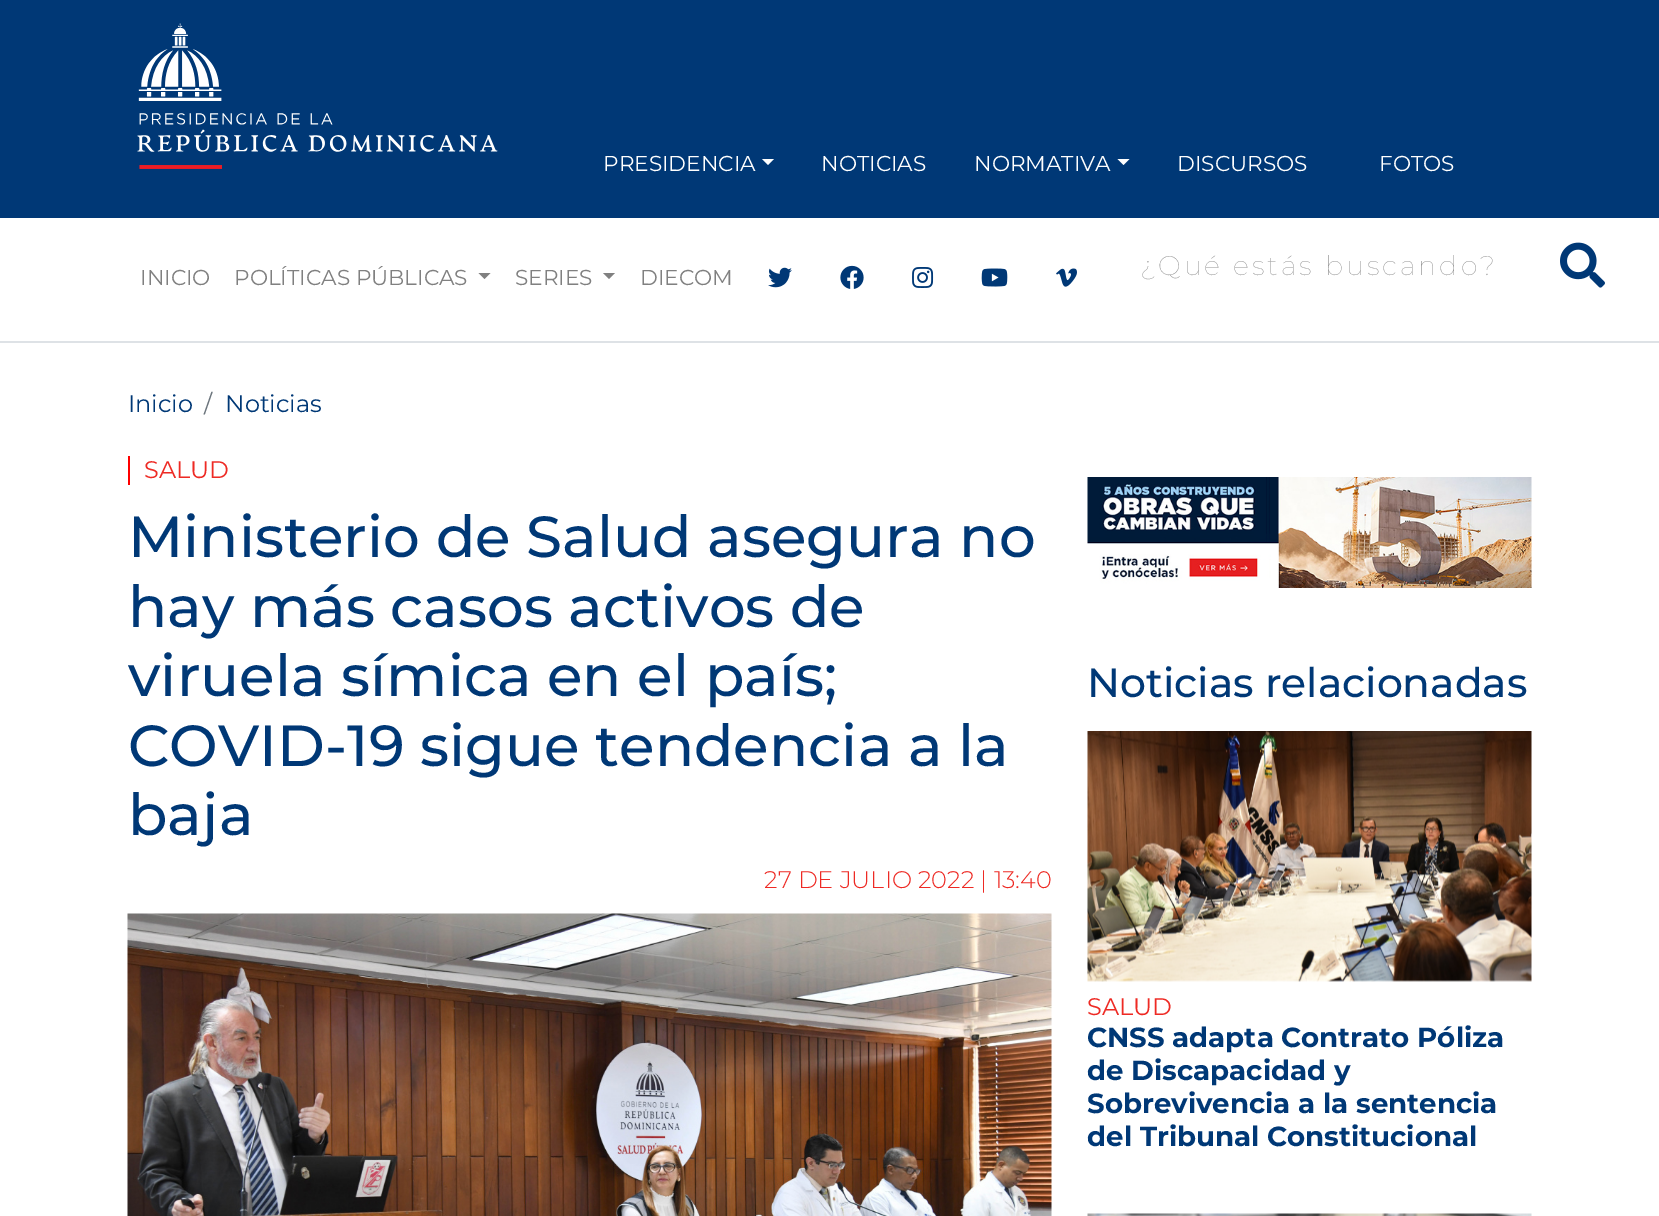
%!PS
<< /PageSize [1659 1216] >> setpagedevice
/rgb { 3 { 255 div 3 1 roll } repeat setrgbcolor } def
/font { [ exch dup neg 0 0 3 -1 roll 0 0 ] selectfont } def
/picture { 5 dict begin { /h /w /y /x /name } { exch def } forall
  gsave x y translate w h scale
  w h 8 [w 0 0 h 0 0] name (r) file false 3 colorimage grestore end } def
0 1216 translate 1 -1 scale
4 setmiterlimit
255 255 255 rgb
0 0 1659 1216 rectfill
0 56 118 rgb
0 0 1659 218 rectfill
(img/1.rgb) 137 23 361 146 picture
255 255 255 rgb
762 159 moveto 774 159 lineto 768 165 lineto closepath fill
1117.5 159 moveto 1129.5 159 lineto 1123.5 165 lineto closepath fill
222 226 230 rgb
0 341 1659 2 rectfill
128 128 128 rgb
478.5 273 moveto 490.5 273 lineto 484.5 279 lineto closepath fill
603 273 moveto 615 273 lineto 609 279 lineto closepath fill
(img/2.rgb) 768 267 24 21 picture
(img/3.rgb) 840 265 24 24 picture
(img/4.rgb) 912 267 22 21 picture
(img/5.rgb) 981 268 27 19 picture
(img/6.rgb) 1056 268 21 19 picture
(img/7.rgb) 1560 242 45 46 picture
255 0 0 rgb
128 456 2 29 rectfill
(img/8.rgb) 127 913 925 303 picture
(img/9.rgb) 1087 477 445 111 picture
(img/10.rgb) 1087 731 445 251 picture
(img/11.rgb) 1087 1213 445 3 picture
/Montserrat-Regular 21.6 font
255 255 255 rgb
[
  [(PRESIDENCIA) 603 171]
  [(NOTICIAS) 821 171]
  [(NORMATIVA) 974 171]
  [(DISCURSOS) 1177 171]
  [(FOTOS) 1379 171]
] { aload pop moveto show } forall
128 128 128 rgb
[
  [(INICIO) 140 285]
  [(POLÍTICAS PÚBLICAS) 234 285]
  [(SERIES) 515 285]
  [(DIECOM) 640 285]
] { aload pop moveto show } forall
/Montserrat-Thin 27 font
153 153 153 rgb
1140 275 moveto 3 0 (¿Qué estás buscando?) ashow
/Montserrat-Regular 24 font
0 56 118 rgb
128 412 moveto (Inicio) show
108 117 125 rgb
204 412 moveto (/) show
0 56 118 rgb
225 412 moveto (Noticias) show
238 42 36 rgb
144 478 moveto (SALUD) show
/Montserrat-Medium 57.9 font
0 56 118 rgb
[
  [(Ministerio de Salud asegura no) 128 557]
  [(hay más casos activos de) 128 627]
  [(viruela símica en el país;) 128 696]
  [(COVID-19 sigue tendencia a la) 128 766]
  [(baja) 128 835]
] { aload pop moveto show } forall
/Montserrat-Light 24 font
238 42 36 rgb
764 888 moveto (27 DE JULIO 2022 | 13:40) show
/Montserrat-Medium 40.75 font
0 56 118 rgb
1087 697 moveto (Noticias relacionadas) show
/Montserrat-Regular 24 font
238 42 36 rgb
1087 1015 moveto (SALUD) show
/Montserrat-Bold 27.6 font
0 56 118 rgb
[
  [(CNSS adapta Contrato Póliza) 1087 1047]
  [(de Discapacidad y) 1087 1080]
  [(Sobrevivencia a la sentencia) 1087 1113]
  [(del Tribunal Constitucional) 1087 1146]
] { aload pop moveto show } forall
showpage
